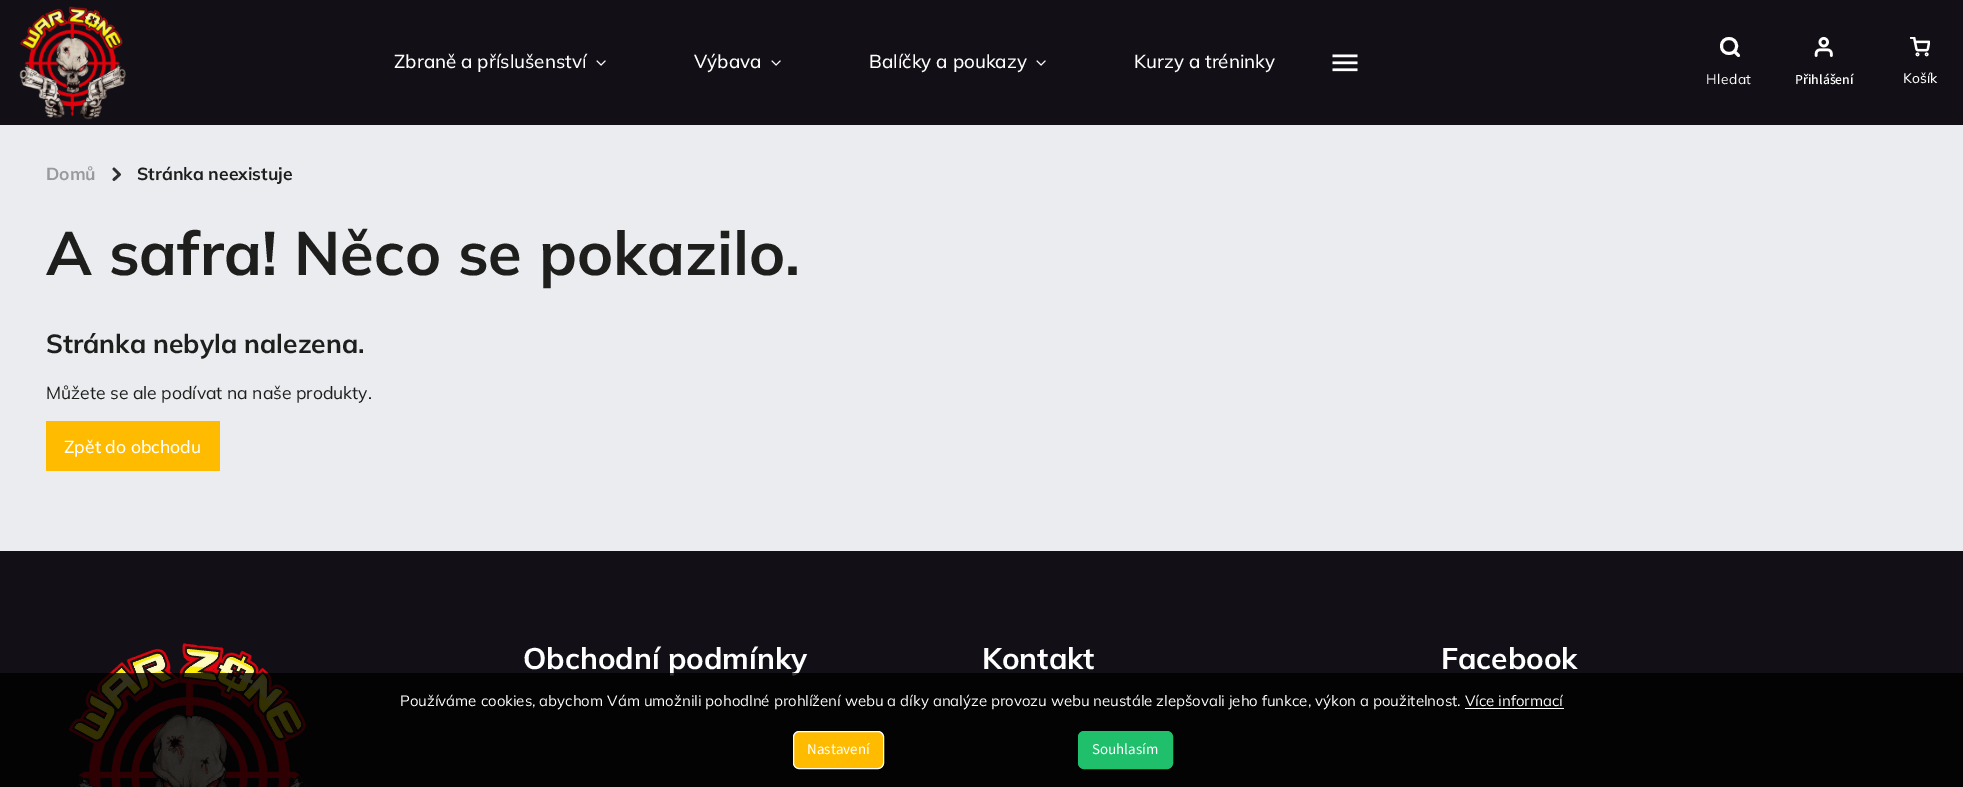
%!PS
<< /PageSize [1963 787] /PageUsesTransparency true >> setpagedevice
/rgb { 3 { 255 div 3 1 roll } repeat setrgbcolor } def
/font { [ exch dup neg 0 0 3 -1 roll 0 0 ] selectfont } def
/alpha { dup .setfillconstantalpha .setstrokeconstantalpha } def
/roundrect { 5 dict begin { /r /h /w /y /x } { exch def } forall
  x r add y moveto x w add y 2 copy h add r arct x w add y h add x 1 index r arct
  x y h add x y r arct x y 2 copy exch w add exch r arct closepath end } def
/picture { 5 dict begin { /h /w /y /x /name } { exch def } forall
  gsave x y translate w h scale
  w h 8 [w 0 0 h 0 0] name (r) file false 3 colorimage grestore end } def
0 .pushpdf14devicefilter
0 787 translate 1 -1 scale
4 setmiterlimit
234 236 240 rgb
0 0 1963 787 rectfill
18 16 22 rgb
0 0 1963 125 rectfill
(img/1.rgb) 596 60 10 6 picture
(img/1.rgb) 771 60 10 6 picture
(img/1.rgb) 1036 60 10 6 picture
(img/2.rgb) 1332 54 26 18 picture
(img/3.rgb) 19 6 107 114 picture
255 255 255 rgb
2.9 setlinewidth
1 setlinecap
1 setlinejoin
1738.5 55.5 moveto 1734.5 51.5 lineto 1736.5 46 moveto 1736.5 56 1721.5 56 1721.5 46 curveto 1721.5 36 1736.5 36 1736.5 46 curveto closepath stroke
(img/4.rgb) 1814 36 19 21 picture
(img/5.rgb) 1910 37 20 20 picture
47 47 48 rgb
2.7 setlinewidth
114 179.5 moveto 119.5 174.5 lineto 114 169 lineto stroke
255 187 0 rgb
46 421 174 50 rectfill
18 16 22 rgb
0 551 1963 236 rectfill
(img/6.rgb) 68 643 240 144 picture
/Mulish-Medium 18.75 font
255 255 255 rgb
[
  [(Zbraně a příslušenství) 394 68]
  [(Výbava) 694 68]
  [(Balíčky a poukazy) 869 68]
  [(Kurzy a tréninky) 1134 68]
] { aload pop moveto show } forall
/Mulish-Regular 13.75 font
1706 84 moveto 0.5 0 (Hledat) ashow
/SourceSans3-Medium 13.75 font
1795 84 moveto (Přihlášení) show
/Mulish-Medium 13.75 font
1903 83 moveto (Košík) show
/Mulish-Bold 17.5 font
152 154 155 rgb
46 180 moveto (Domů) show
30 30 28 rgb
137 180 moveto (Stránka neexistuje) show
/Mulish-Bold 61.25 font
46 275 moveto (A safra! Něco se pokazilo.) show
/Mulish-Bold 26.25 font
46 353 moveto (Stránka nebyla nalezena.) show
/Mulish-Regular 17.5 font
46 399 moveto (Můžete se ale podívat na naše produkty.) show
/Mulish-Medium 17.5 font
255 255 255 rgb
64 453 moveto (Zpět do obchodu) show
/Mulish-Bold 29.75 font
[
  [(Obchodní podmínky) 523 669]
  [(Kontakt) 982 669]
  [(Facebook) 1441 669]
] { aload pop moveto show } forall
0.8 alpha
0 0 0 rgb
0 673 1963 114 rectfill
/Mulish-Regular 15 font
1 alpha
255 255 255 rgb
400 706 moveto (Používáme cookies, abychom Vám umožnili pohodlné prohlížení webu a díky analýze provozu webu neustále zlepšovali jeho funkce, výkon a použitelnost. Více informací) show
1465 708 99 1 rectfill
255 187 0 rgb
793.5 731.5 90 37 5.5 roundrect gsave fill grestore
255 255 255 rgb
1 setlinewidth
0 setlinecap
0 setlinejoin
stroke
/SourceSans3-Regular 15 font
807 754 moveto (Nastavení) show
32 191 107 rgb
1078.5 731.5 94 37 5.5 roundrect gsave fill grestore
stroke
255 255 255 rgb
1092 754 moveto (Souhlasím) show
.poppdf14devicefilter showpage
